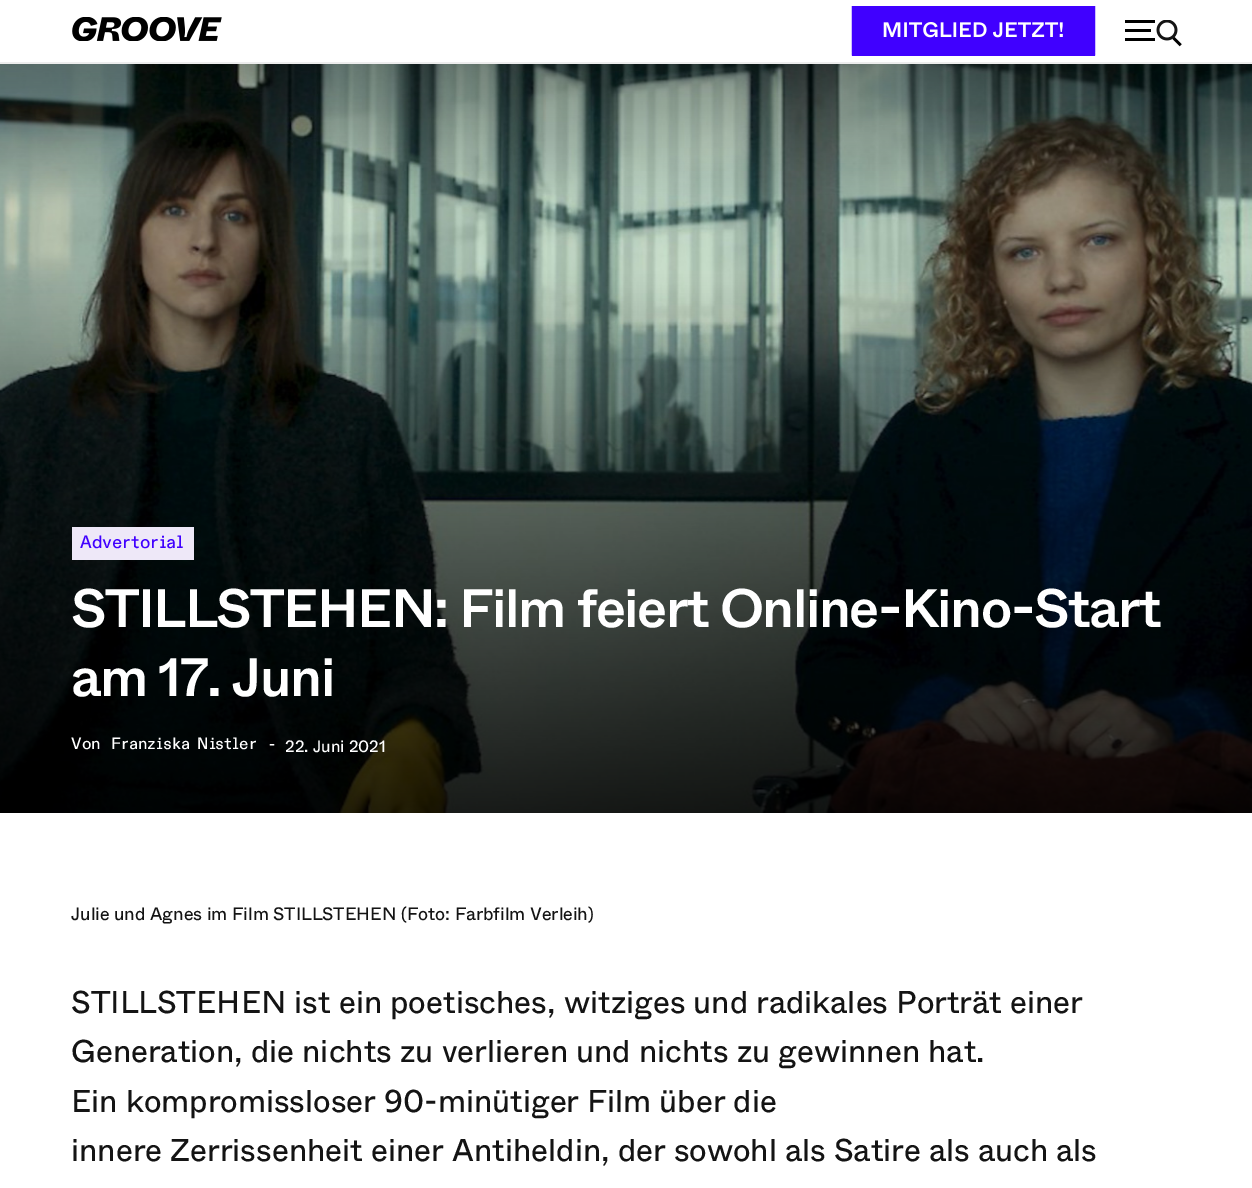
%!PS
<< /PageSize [1252 1188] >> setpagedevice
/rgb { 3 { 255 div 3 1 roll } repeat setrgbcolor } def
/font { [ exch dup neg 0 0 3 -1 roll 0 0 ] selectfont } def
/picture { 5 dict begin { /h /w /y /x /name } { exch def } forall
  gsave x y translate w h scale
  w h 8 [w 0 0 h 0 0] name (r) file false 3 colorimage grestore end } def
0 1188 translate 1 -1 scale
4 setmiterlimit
255 255 255 rgb
0 0 1252 1188 rectfill
237 237 237 rgb
0 62 1252 2 rectfill
(img/1.rgb) 72 17 150 24 picture
64 0 255 rgb
852 6 243 50 rectfill
(img/3.rgb) 1125 20 57 27 picture
(img/4.rgb) 0 64 1252 749 picture
238 232 248 rgb
72 527 122 33 rectfill
/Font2-Medium 21 font
255 255 255 rgb
882 37 moveto (MITGLIED JETZT!) show
(img/2.rgb) 851 6 245 50 picture
/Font-Medium 18 font
64 0 255 rgb
80 548 moveto (Advertorial) show
/Font2-Medium 54 font
255 255 255 rgb
71 627 moveto -1.5 0 (STILLSTEHEN: Film feiert Online-Kino-Start) ashow
71 696 moveto -1.5 0 (am 17. Juni) ashow
/Font-Medium 16.5 font
[
  [(Von) 71 749]
  [(Franziska Nistler) 111 749]
  [(-) 268 749]
] { aload pop moveto show } forall
/Font-Regular 16.5 font
285 752 moveto (22. Juni 2021) show
/Font-Regular 18 font
20 20 20 rgb
71 920 moveto (Julie und Agnes im Film STILLSTEHEN \(Foto: Farbfilm Verleih\)) show
/Font-Regular 31.5 font
[
  [(STILLSTEHEN ist ein poetisches, witziges und radikales Porträt einer) 71 1013]
  [(Generation, die nichts zu verlieren und nichts zu gewinnen hat.) 71 1062]
  [(Ein kompromissloser 90-minütiger Film über die) 71 1112]
  [(innere Zerrissenheit einer Antiheldin, der sowohl als Satire) 71 1161]
  [(als auch als) 929 1161]
] { aload pop moveto show } forall
showpage
